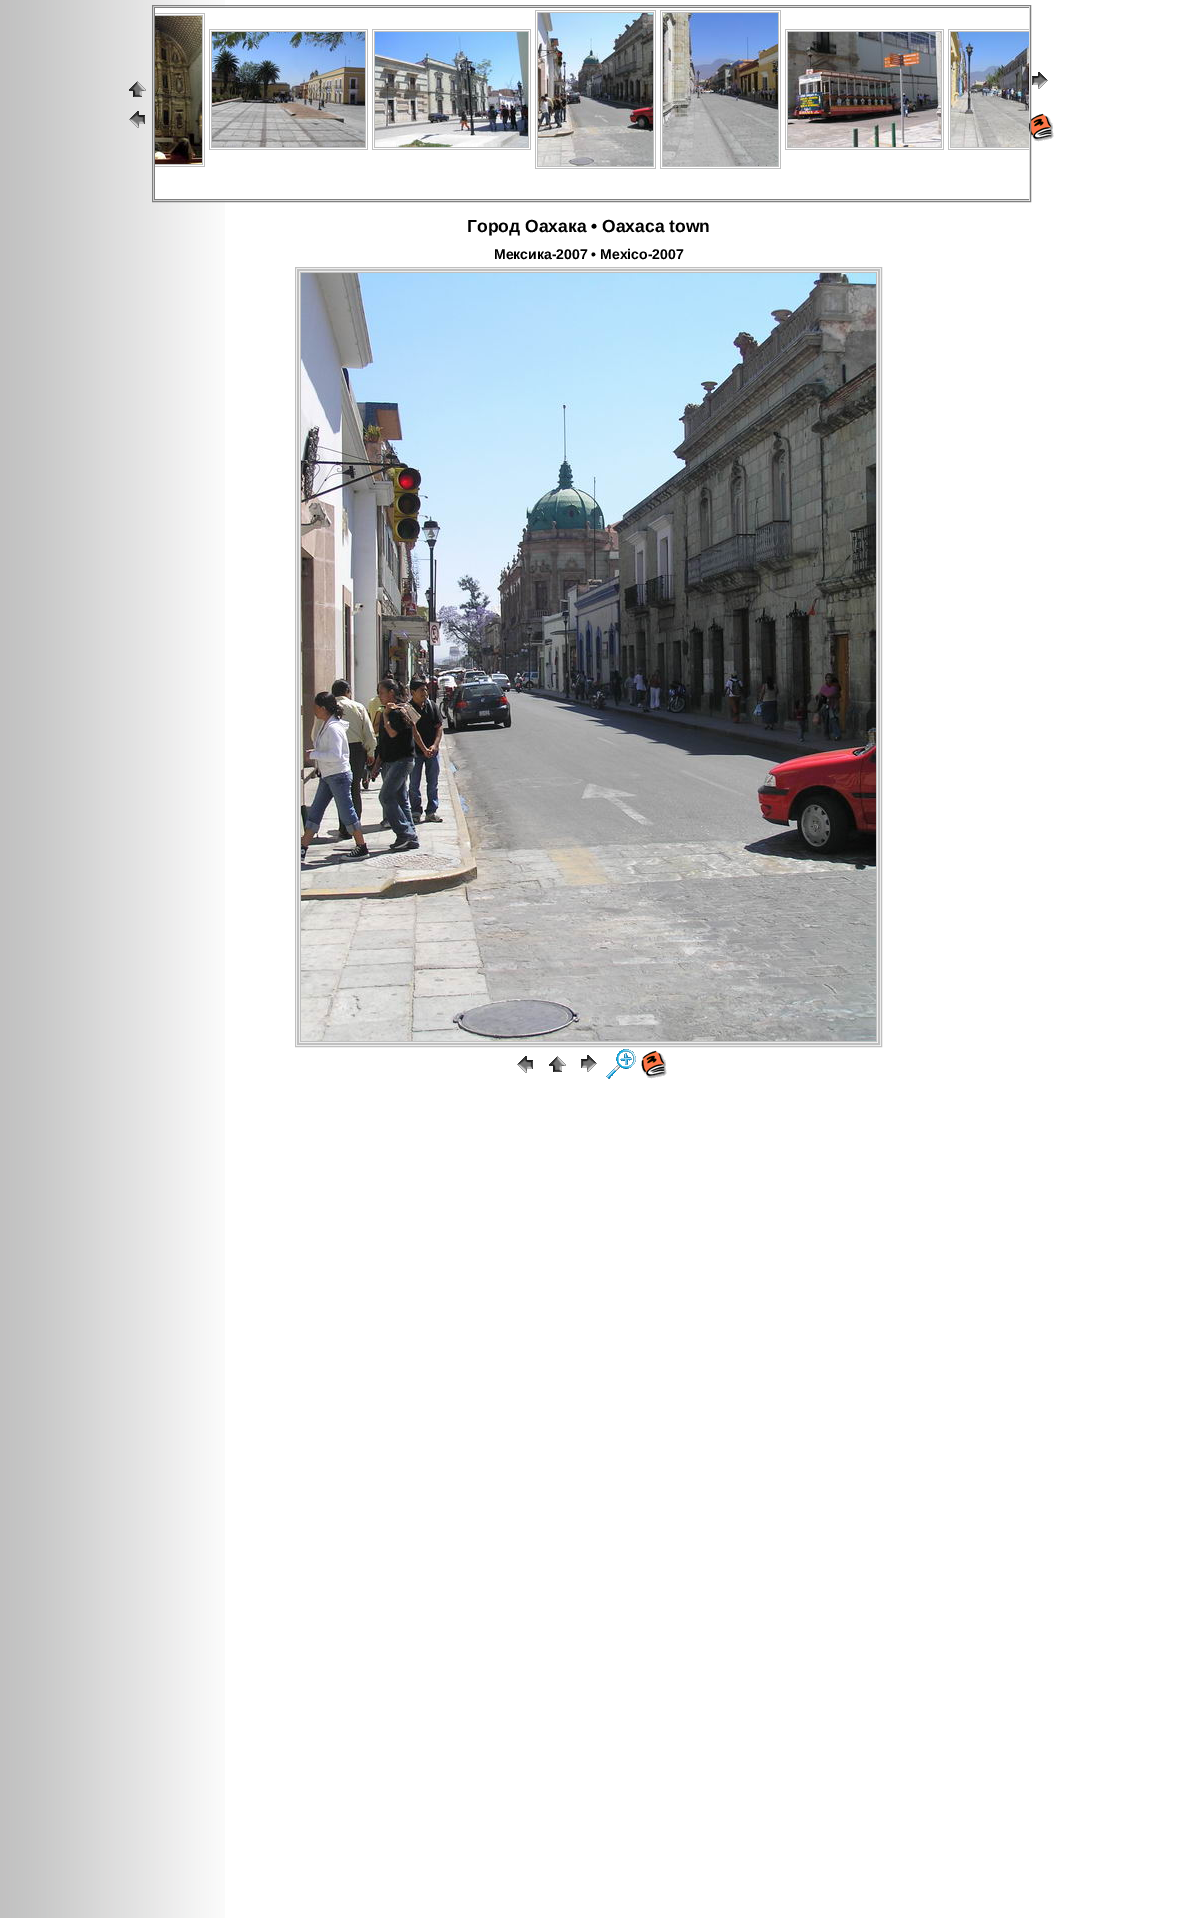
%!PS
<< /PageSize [1177 1918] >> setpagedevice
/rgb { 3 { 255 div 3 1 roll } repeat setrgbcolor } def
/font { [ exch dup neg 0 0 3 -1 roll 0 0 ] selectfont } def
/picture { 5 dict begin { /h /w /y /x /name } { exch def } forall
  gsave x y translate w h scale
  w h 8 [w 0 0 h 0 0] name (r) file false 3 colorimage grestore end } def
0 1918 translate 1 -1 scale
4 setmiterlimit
255 255 255 rgb
0 0 1177 1918 rectfill
(img/1.rgb) 0 0 225 1918 picture
(img/2.rgb) 129 81 17 16 picture
(img/3.rgb) 129 111 16 17 picture
(img/6.rgb) 1029 113 25 29 picture
128 128 128 rgb
152.5 5.5 878 196 rectstroke
154.5 7.5 874 192 rectstroke
(img/4.rgb) 155 8 874 191 picture
(img/5.rgb) 1032 72 16 17 picture
192 192 192 rgb
295.5 267.5 586 779 rectstroke
297.5 269.5 582 775 rectstroke
298.5 270.5 580 773 rectstroke
300.5 272.5 576 769 rectstroke
(img/7.rgb) 301 273 575 768 picture
(img/8.rgb) 517 1056 16 17 picture
(img/9.rgb) 549 1056 17 16 picture
(img/5.rgb) 581 1055 16 17 picture
(img/10.rgb) 606 1049 30 30 picture
(img/11.rgb) 641 1050 26 29 picture
/LiberationSans-Bold 17.5 font
0 0 0 rgb
467 232 moveto (Город Оахака • Oaxaca town) show
/LiberationSans-Bold 14 font
494 259 moveto (Мексика-2007 • Mexico-2007) show
showpage
